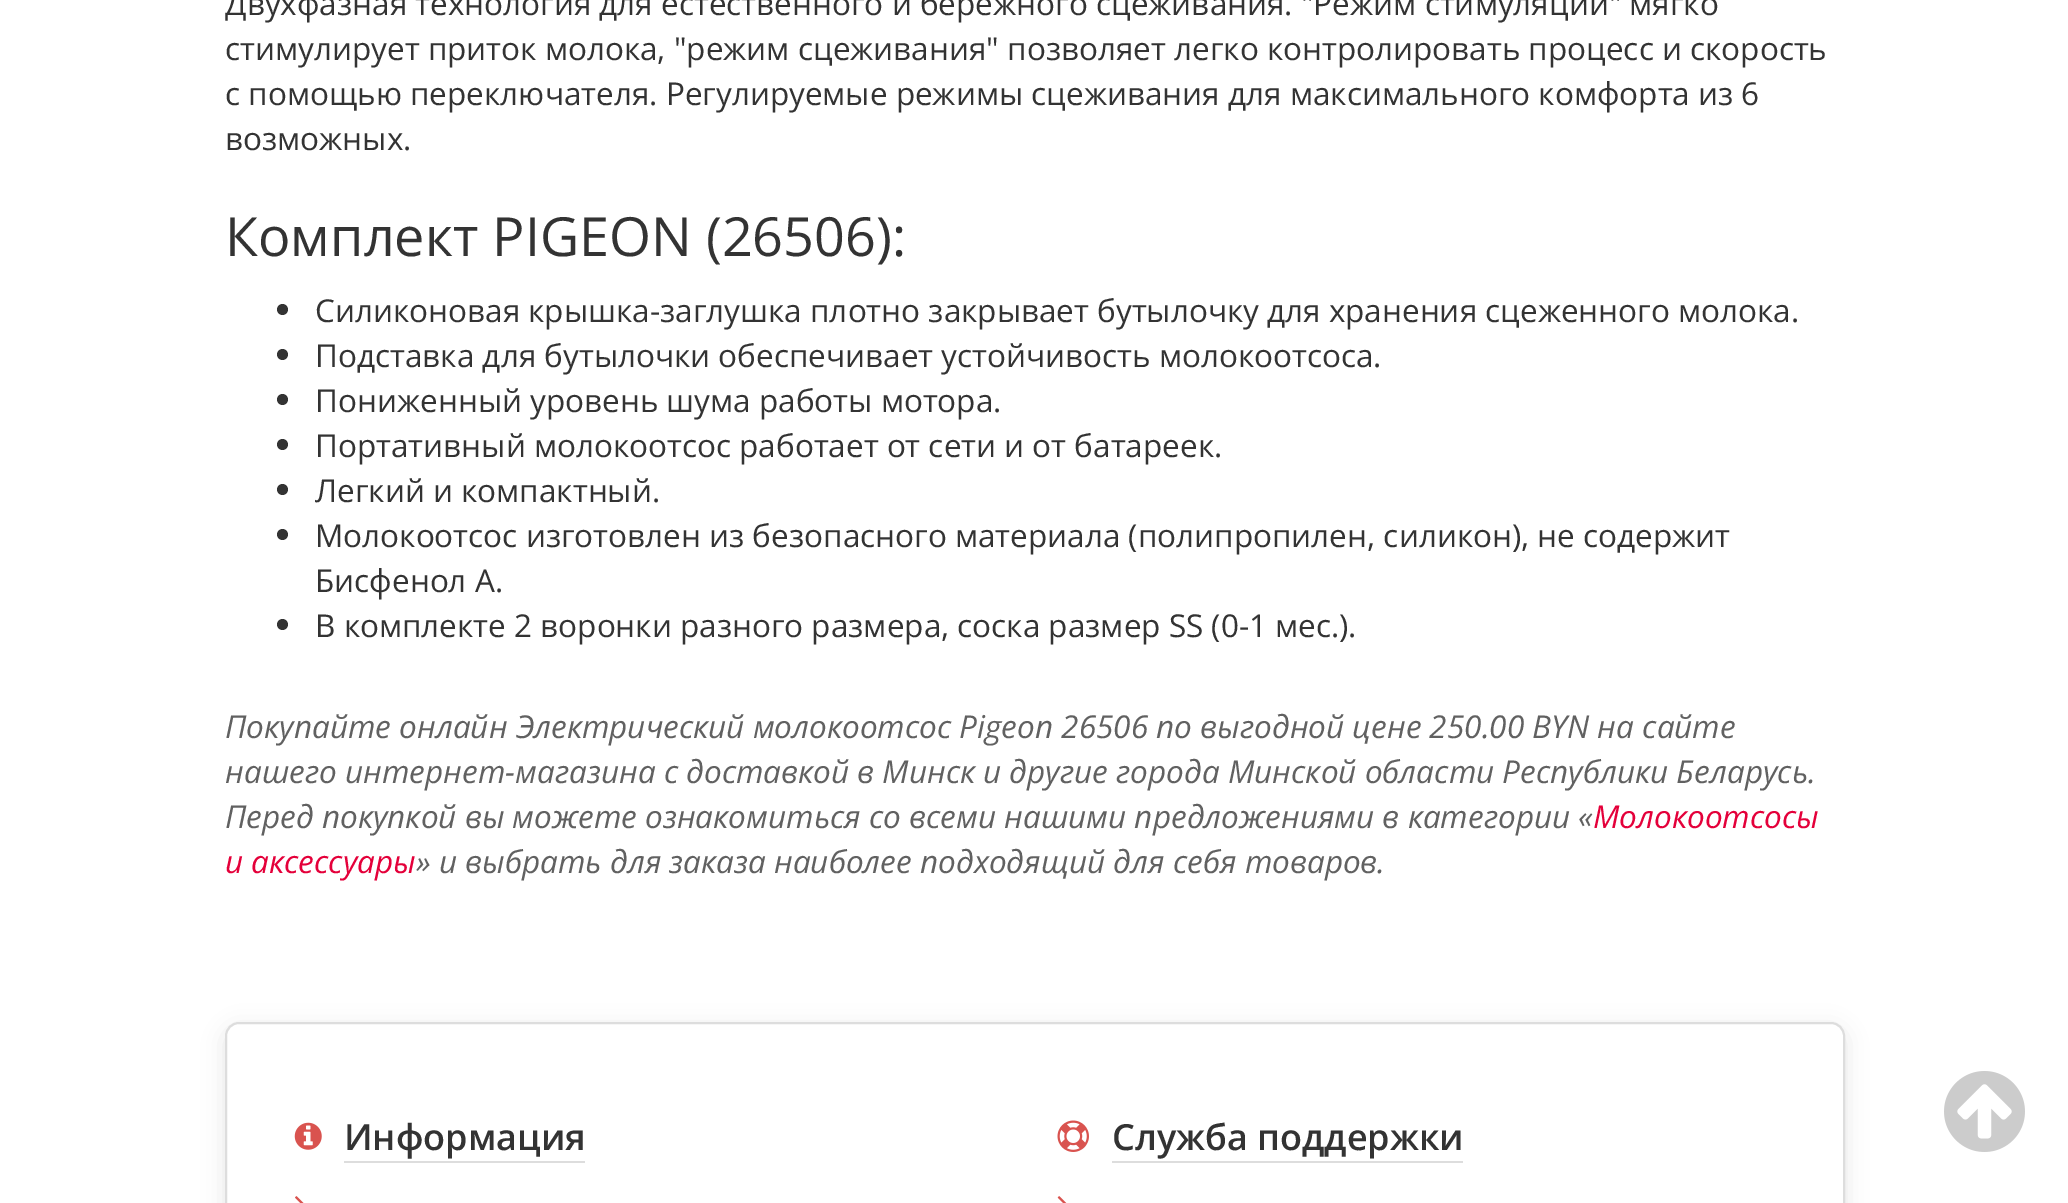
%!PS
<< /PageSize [2068 1203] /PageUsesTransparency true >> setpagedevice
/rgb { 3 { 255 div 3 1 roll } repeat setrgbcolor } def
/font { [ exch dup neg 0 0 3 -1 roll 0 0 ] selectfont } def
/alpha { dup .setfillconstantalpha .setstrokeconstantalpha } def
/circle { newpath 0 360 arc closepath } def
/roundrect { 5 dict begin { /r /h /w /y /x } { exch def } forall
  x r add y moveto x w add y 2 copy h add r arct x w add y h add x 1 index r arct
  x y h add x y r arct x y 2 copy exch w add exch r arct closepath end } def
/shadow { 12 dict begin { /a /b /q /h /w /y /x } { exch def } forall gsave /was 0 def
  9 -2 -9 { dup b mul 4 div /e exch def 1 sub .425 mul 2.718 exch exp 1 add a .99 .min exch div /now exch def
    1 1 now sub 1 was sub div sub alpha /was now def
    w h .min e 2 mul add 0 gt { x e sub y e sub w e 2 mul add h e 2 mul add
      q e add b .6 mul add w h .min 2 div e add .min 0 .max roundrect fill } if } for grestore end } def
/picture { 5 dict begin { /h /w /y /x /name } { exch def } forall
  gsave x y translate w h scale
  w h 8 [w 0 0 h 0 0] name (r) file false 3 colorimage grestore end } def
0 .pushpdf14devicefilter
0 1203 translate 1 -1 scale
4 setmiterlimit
255 255 255 rgb
0 0 2068 1203 rectfill
51 51 51 rgb
282.5 309.5 5.5 circle fill
282.5 354.5 5.5 circle fill
282.5 399.5 5.5 circle fill
282.5 444.5 5.5 circle fill
282.5 489.5 5.5 circle fill
282.5 534.5 5.5 circle fill
282.5 624.5 5.5 circle fill
gsave
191 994 moveto 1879 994 lineto 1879 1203 lineto 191 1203 lineto closepath 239 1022 moveto 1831 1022 lineto 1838.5 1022 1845 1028.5 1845 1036 curveto 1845 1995 lineto 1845 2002.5 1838.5 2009 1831 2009 curveto 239 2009 lineto 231.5 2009 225 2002.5 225 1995 curveto 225 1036 lineto 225 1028.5 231.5 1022 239 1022 curveto closepath eoclip newpath
0 0 0 rgb
225 1028 1620 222 14 11 0.1 shadow
grestore
221 221 221 rgb
2 setlinewidth
226 1023 1618 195 13 roundrect stroke
(img/1.rgb) 294 1122 28 28 picture
344 1161 241 2 rectfill
(img/2.rgb) 295 1196 9 7 picture
(img/3.rgb) 1057 1120 32 32 picture
1112 1161 351 2 rectfill
(img/4.rgb) 1057 1196 10 7 picture
(img/5.rgb) 1944 1071 81 81 picture
/OpenSans-Regular 31.5 font
51 51 51 rgb
[
  [(Двухфазная технология для естественного и бережного сцеживания. "Режим стимуляции" мягко) 225 15]
  [(стимулирует приток молока, "режим сцеживания" позволяет легко контролировать процесс и скорость) 225 60]
  [(с помощью переключателя. Регулируемые режимы сцеживания для максимального комфорта из 6) 225 105]
  [(возможных.) 225 150]
] { aload pop moveto show } forall
/OpenSans-Regular 54 font
225 256 moveto (Комплект PIGEON \(26506\):) show
/OpenSans-Regular 31.5 font
[
  [(Силиконовая крышка-заглушка плотно закрывает бутылочку для хранения сцеженного молока.) 315 322]
  [(Подставка для бутылочки обеспечивает устойчивость молокоотсоса.) 315 367]
  [(Пониженный уровень шума работы мотора.) 315 412]
  [(Портативный молокоотсос работает от сети и от батареек.) 315 457]
  [(Легкий и компактный.) 315 502]
  [(Молокоотсос изготовлен из безопасного материала \(полипропилен, силикон\), не содержит) 315 547]
  [(Бисфенол А.) 315 592]
  [(В комплекте 2 воронки разного размера, соска размер SS \(0-1 мес.\).) 315 637]
] { aload pop moveto show } forall
/OpenSans-Italic 31.5 font
97 97 97 rgb
[
  [(Покупайте онлайн Электрический молокоотсос Pigeon 26506 по выгодной цене 250.00 BYN на сайте) 225 738]
  [(нашего интернет-магазина с доставкой в Минск и другие города Минской области Республики Беларусь.) 225 783]
  [(Перед покупкой вы можете ознакомиться со всеми нашими предложениями в категории «) 225 828]
] { aload pop moveto show } forall
228 0 58 rgb
1593 828 moveto (Молокоотсосы) show
225 873 moveto (и аксессуары) show
97 97 97 rgb
416 873 moveto (» и выбрать для заказа наиболее подходящий для себя товаров.) show
/OpenSans-SemiBold 36 font
51 51 51 rgb
344 1150 moveto (Информация) show
1112 1150 moveto (Служба поддержки) show
.poppdf14devicefilter showpage
